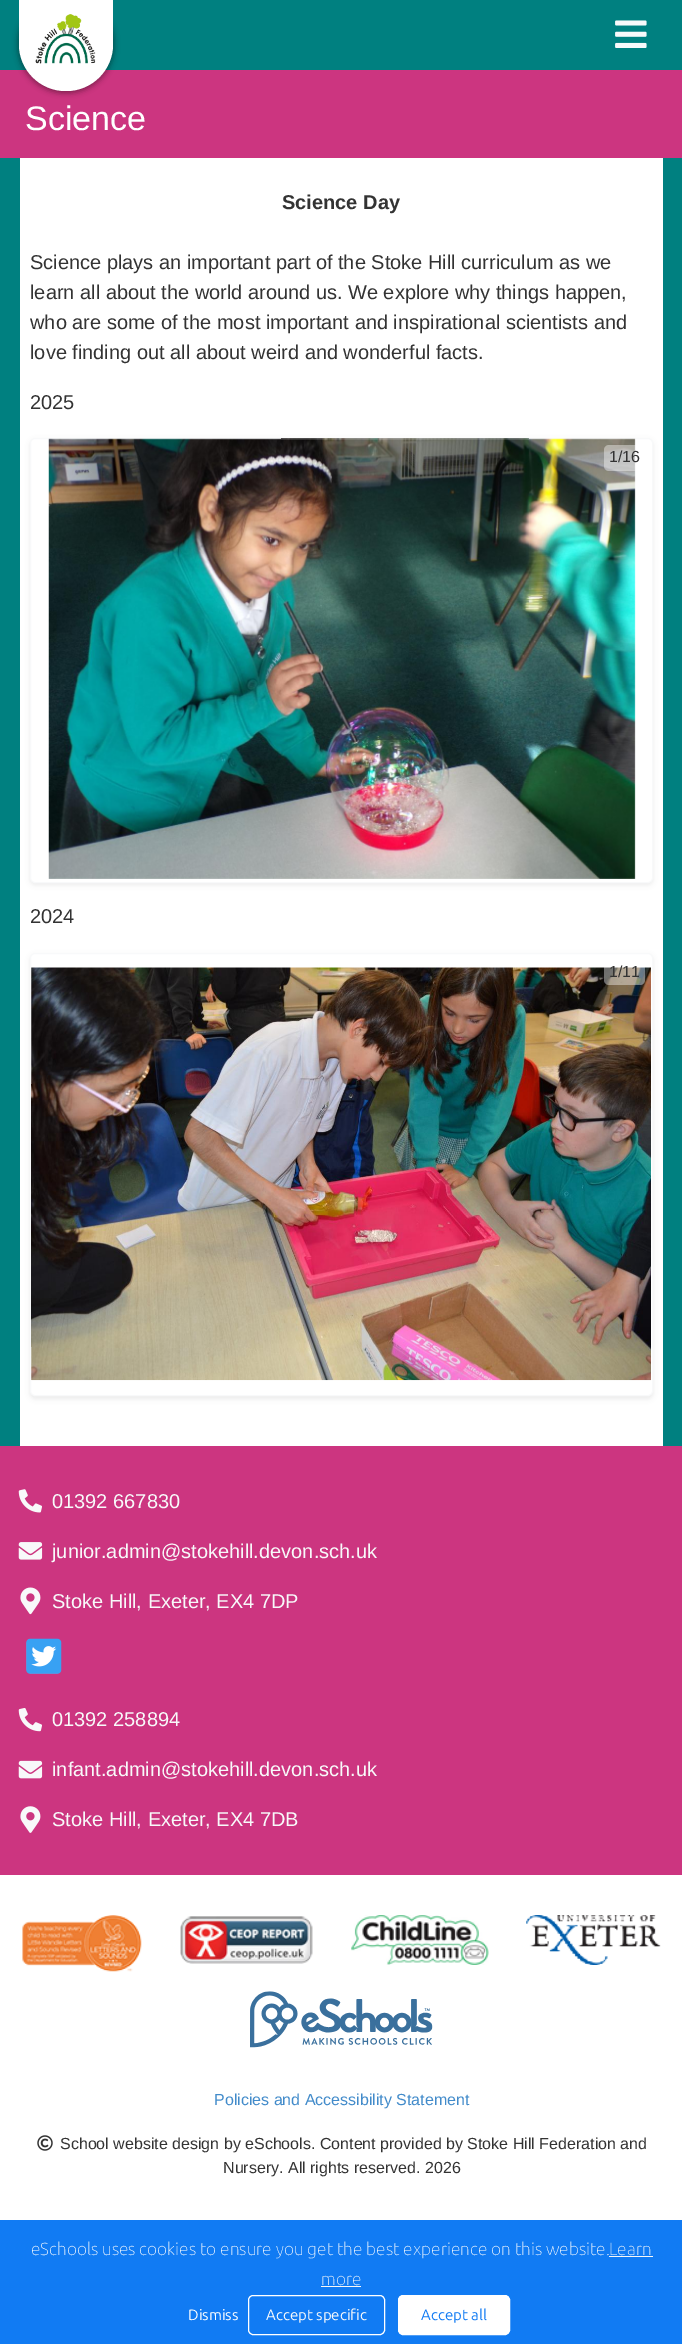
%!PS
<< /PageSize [682 2344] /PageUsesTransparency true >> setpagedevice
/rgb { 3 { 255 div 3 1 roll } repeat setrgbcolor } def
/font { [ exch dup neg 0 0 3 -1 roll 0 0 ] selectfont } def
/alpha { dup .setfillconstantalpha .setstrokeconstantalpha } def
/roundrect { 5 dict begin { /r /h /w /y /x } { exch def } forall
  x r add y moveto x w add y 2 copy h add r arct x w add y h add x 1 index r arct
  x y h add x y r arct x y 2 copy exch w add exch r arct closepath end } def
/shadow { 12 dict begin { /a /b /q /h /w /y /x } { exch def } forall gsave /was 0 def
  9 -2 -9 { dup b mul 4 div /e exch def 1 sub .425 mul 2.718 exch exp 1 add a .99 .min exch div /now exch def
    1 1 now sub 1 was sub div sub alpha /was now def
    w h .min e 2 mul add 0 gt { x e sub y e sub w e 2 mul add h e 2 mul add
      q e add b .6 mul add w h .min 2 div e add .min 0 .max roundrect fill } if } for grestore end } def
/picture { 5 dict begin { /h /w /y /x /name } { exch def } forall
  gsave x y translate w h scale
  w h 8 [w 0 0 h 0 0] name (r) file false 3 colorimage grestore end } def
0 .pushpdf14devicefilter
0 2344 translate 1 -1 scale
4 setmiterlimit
255 255 255 rgb
0 0 682 2344 rectfill
0 128 128 rgb
0 0 682 70 rectfill
204 53 128 rgb
0 70 682 88 rectfill
0 0 0 rgb
18 -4 96 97 48 3 0.4 shadow
255 255 255 rgb
19 -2 moveto 113 -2 lineto 113 44.5 lineto 113 70 92 91 66.5 91 curveto 65.5 91 lineto 40 91 19 70 19 44.5 curveto closepath fill
(img/1.rgb) 35 14 61 50 picture
(img/2.rgb) 615 20 32 28 picture
0 128 128 rgb
0 158 682 1288 rectfill
255 255 255 rgb
20 158 643 1288 rectfill
gsave
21 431 moveto 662 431 lineto 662 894 lineto 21 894 lineto closepath 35 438 moveto 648 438 lineto 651 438 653 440 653 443 curveto 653 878 lineto 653 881 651 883 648 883 curveto 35 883 lineto 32 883 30 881 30 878 curveto 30 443 lineto 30 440 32 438 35 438 curveto closepath eoclip newpath
0 0 0 rgb
30 440 623 445 5 2.5 0.07 shadow
grestore
248 249 250 rgb
30.5 438.5 622 444 4.5 roundrect stroke
(img/3.rgb) 48 438 588 441 picture
0.4 alpha
255 255 255 rgb
604 445 41 26 5 roundrect fill
gsave
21 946 moveto 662 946 lineto 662 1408 lineto 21 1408 lineto closepath 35 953 moveto 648 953 lineto 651 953 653 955 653 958 curveto 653 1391 lineto 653 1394 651 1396 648 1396 curveto 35 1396 lineto 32 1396 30 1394 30 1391 curveto 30 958 lineto 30 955 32 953 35 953 curveto closepath eoclip newpath
1 alpha
0 0 0 rgb
30 955 623 444 5 2.5 0.07 shadow
grestore
1 alpha
248 249 250 rgb
30.5 953.5 622 442 4.5 roundrect stroke
(img/4.rgb) 31 967 620 414 picture
0.4 alpha
255 255 255 rgb
604 960 41 25 5 roundrect fill
1 alpha
204 53 128 rgb
0 1446 682 429 rectfill
(img/5.rgb) 18 1489 24 24 picture
(img/6.rgb) 18 1542 25 18 picture
(img/7.rgb) 20 1587 21 28 picture
(img/9.rgb) 26 1639 35 35 picture
(img/8.rgb) 26 1638 36 36 picture
(img/10.rgb) 18 1708 24 24 picture
(img/11.rgb) 18 1760 25 19 picture
(img/12.rgb) 20 1806 21 27 picture
(img/13.rgb) 22 1915 120 57 picture
(img/14.rgb) 180 1916 133 48 picture
(img/15.rgb) 351 1915 138 50 picture
(img/16.rgb) 526 1915 135 50 picture
(img/17.rgb) 250 1991 183 57 picture
(img/18.rgb) 37 2135 16 16 picture
[
  [0 2220 682 124 17 123 243]
  [609 2256 44 1 247 247 247]
  [321 2286 40 1 247 247 247]
] { aload pop rgb rectfill } forall
255 255 255 rgb
248.5 2295.5 136 39 4.5 roundrect stroke
398.5 2295.5 111 39 4.5 roundrect gsave fill grestore
stroke
/LiberationSans-Regular 34 font
25 130 moveto (Science) show
/LiberationSans-Bold 20 font
51 51 51 rgb
282 209 moveto (Science Day) show
/LiberationSans-Regular 20 font
[
  [(Science plays an important part of the Stoke Hill curriculum as we) 30 269]
  [(learn all about the world around us. We explore why things happen,) 30 299]
  [(who are some of the most important and inspirational scientists and) 30 329]
  [(love finding out all about weird and wonderful facts.) 30 359]
  [(2025) 30 409]
] { aload pop moveto show } forall
/LiberationSans-Regular 16 font
609 462 moveto (1/16) show
/LiberationSans-Regular 20 font
30 923 moveto (2024) show
/LiberationSans-Regular 16 font
609 977 moveto (1/11) show
/LiberationSans-Regular 20 font
248 249 250 rgb
[
  [(01392 667830) 52 1508]
  [(junior.admin@stokehill.devon.sch.uk) 52 1558]
  [(Stoke Hill, Exeter, EX4 7DP) 52 1608]
  [(01392 258894) 52 1726]
  [(infant.admin@stokehill.devon.sch.uk) 52 1776]
  [(Stoke Hill, Exeter, EX4 7DB) 52 1826]
] { aload pop moveto show } forall
/LiberationSans-Regular 16 font
66 139 202 rgb
214 2105 moveto (Policies and Accessibility Statement) show
51 51 51 rgb
60 2149 moveto (School website design by eSchools. Content provided by Stoke Hill Federation and) show
223 2173 moveto (Nursery. All rights reserved. 2026) show
/Ubuntu-Thin 17.5 font
255 255 255 rgb
31 2255 moveto (eSchools uses cookies to ensure you get the best experience on this website.) show
248 249 250 rgb
609 2255 moveto (Learn) show
321 2285 moveto (more) show
/Ubuntu-Regular 15 font
255 255 255 rgb
188 2320 moveto (Dismiss) show
248 249 250 rgb
266 2320 moveto (Accept specific) show
17 123 243 rgb
421 2320 moveto (Accept all) show
.poppdf14devicefilter showpage
